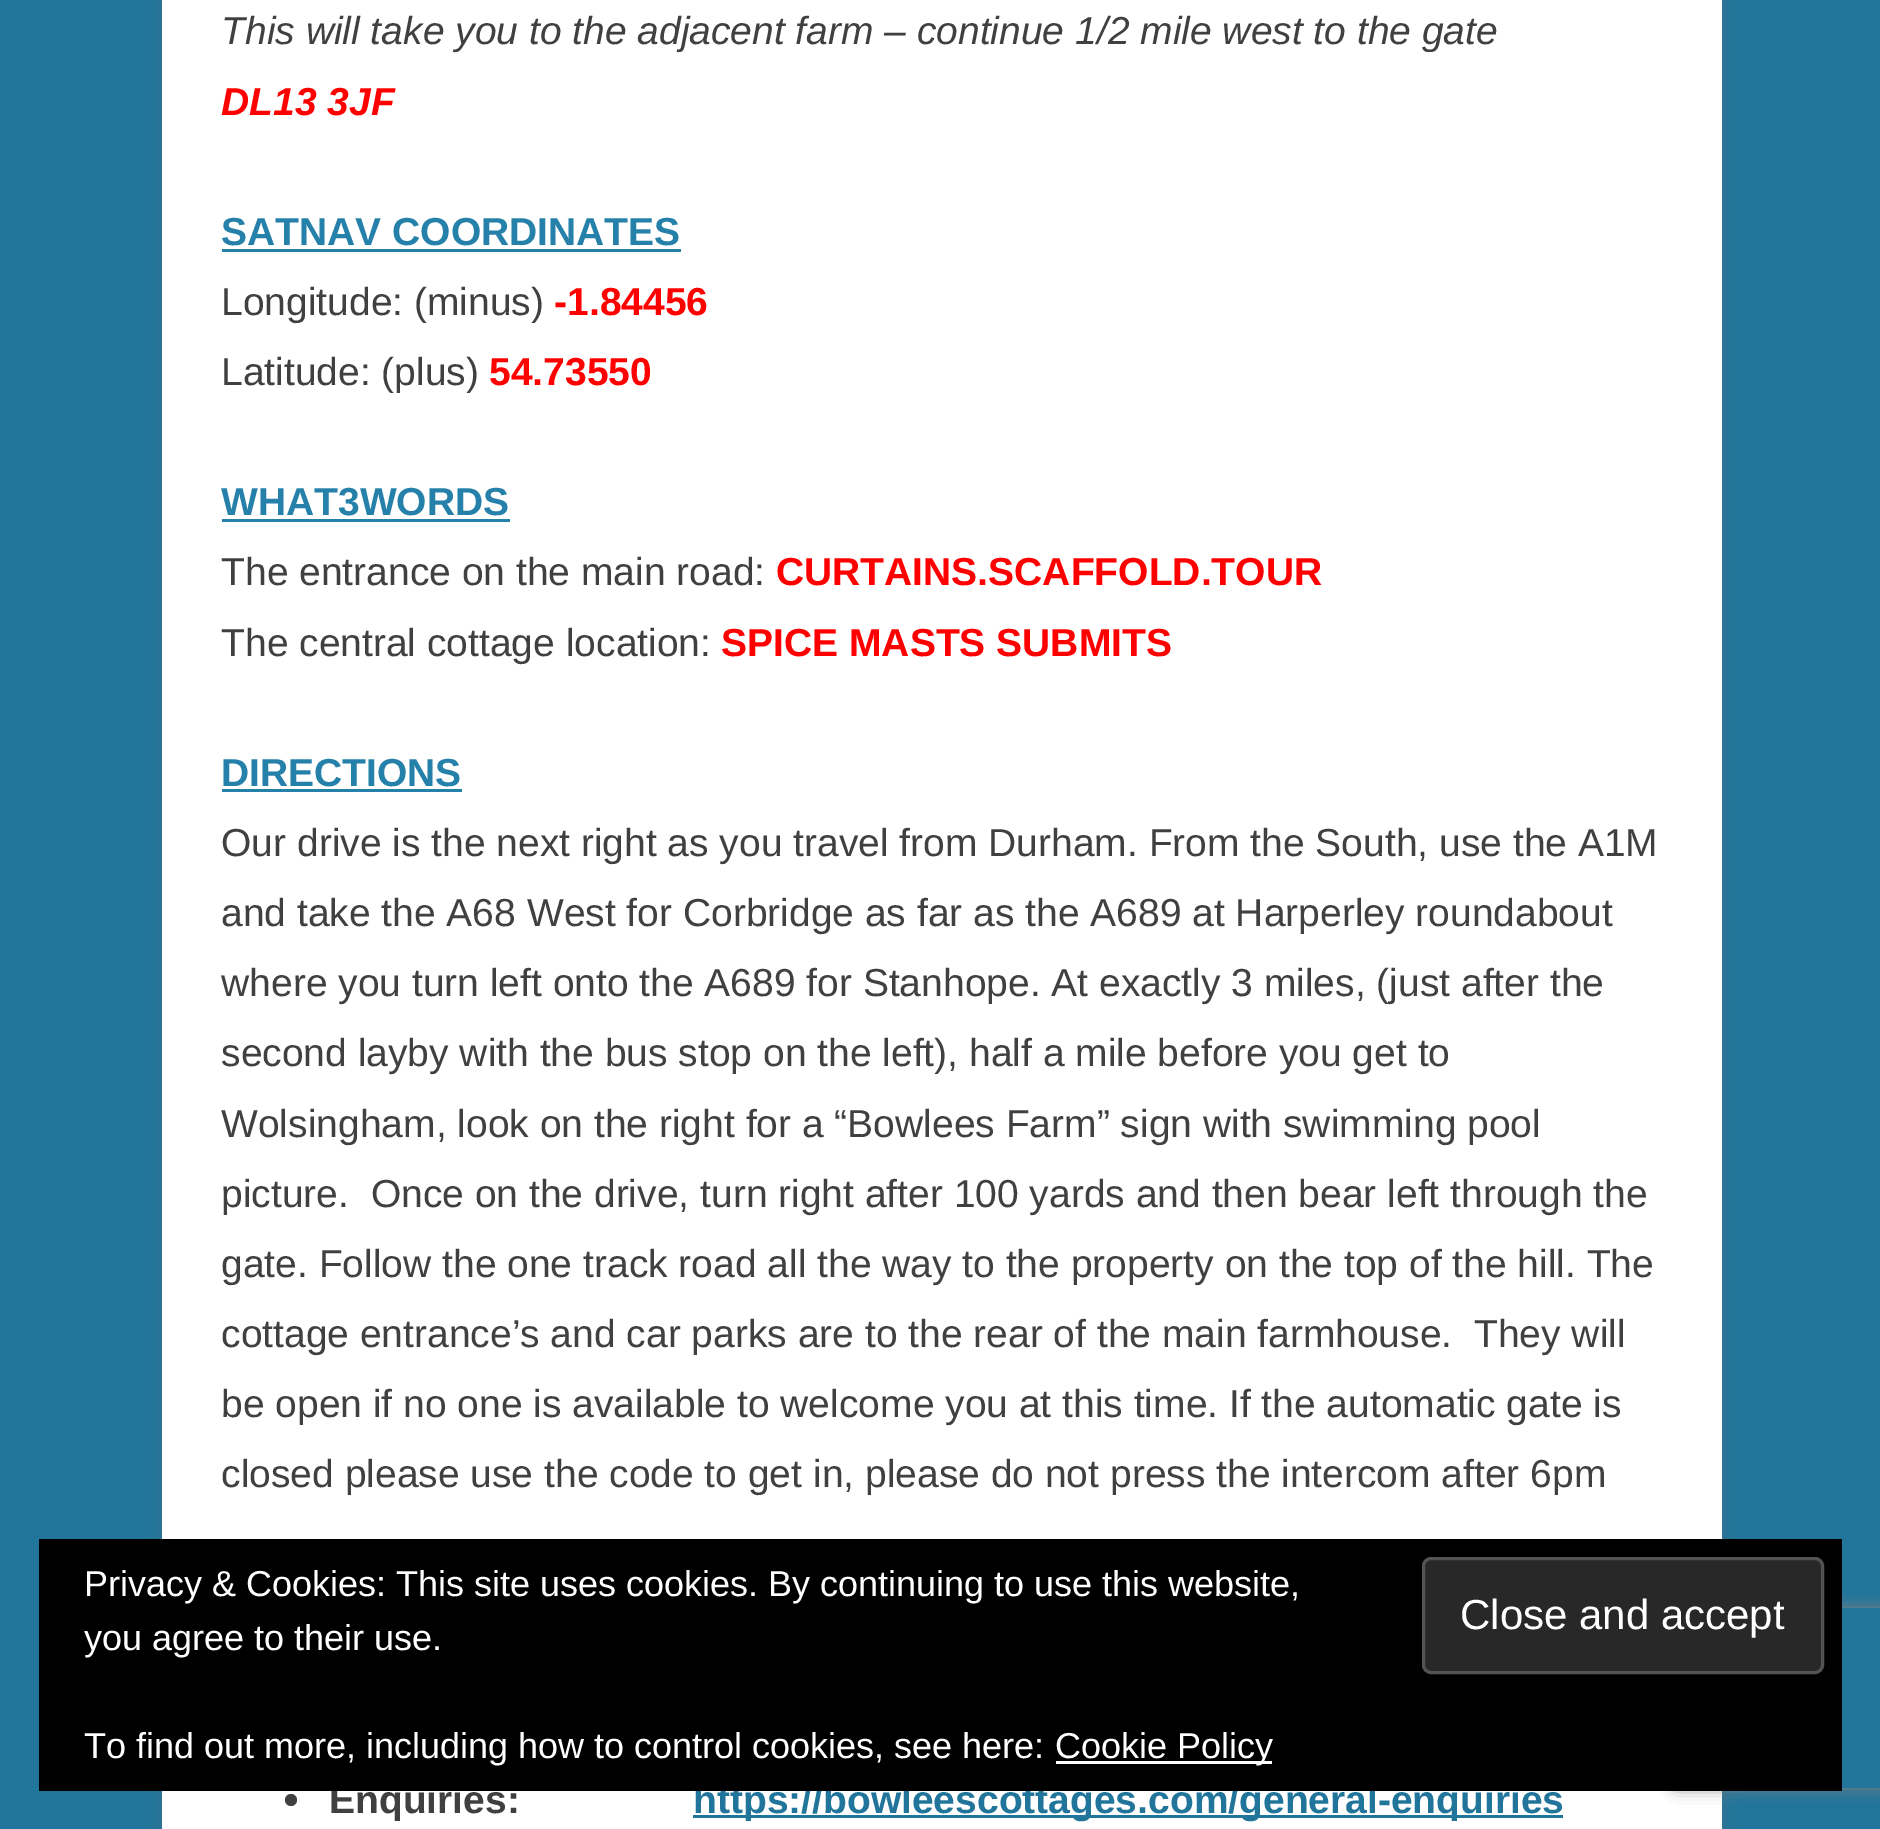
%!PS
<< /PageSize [1880 1829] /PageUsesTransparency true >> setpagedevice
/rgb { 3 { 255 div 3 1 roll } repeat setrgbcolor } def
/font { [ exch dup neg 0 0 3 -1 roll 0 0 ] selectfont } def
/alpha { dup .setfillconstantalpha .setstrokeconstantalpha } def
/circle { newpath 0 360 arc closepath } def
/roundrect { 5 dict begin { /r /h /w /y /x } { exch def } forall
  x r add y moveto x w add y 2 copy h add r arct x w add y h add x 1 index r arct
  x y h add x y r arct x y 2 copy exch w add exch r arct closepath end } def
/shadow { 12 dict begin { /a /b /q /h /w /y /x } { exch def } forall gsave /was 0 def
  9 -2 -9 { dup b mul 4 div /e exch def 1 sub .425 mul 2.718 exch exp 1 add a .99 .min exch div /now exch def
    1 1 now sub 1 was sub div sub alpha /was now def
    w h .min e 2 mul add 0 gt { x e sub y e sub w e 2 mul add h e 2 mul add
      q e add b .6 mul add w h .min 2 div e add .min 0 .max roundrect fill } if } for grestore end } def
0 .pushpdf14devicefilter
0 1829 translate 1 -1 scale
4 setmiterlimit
33 117 155 rgb
0 0 1880 1829 rectfill
100 100 100 rgb
162 -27 1560 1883 0 9 0.3 shadow
[
  [162 0 1560 1829 255 255 255]
  [222 249 459 3 37 129 170]
  [222 519 288 3 37 129 170]
  [222 789 240 3 37 129 170]
] { aload pop rgb rectfill } forall
64 64 64 rgb
291 1800 6 circle fill
33 117 155 rgb
693 1815 870 3 rectfill
gsave
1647 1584 moveto 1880 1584 lineto 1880 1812 lineto 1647 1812 lineto closepath 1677 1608 moveto 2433 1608 lineto 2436.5 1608 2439 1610.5 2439 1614 curveto 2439 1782 lineto 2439 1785.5 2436.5 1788 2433 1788 curveto 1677 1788 lineto 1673.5 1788 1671 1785.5 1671 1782 curveto 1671 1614 lineto 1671 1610.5 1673.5 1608 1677 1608 curveto closepath eoclip newpath
128 128 128 rgb
1671 1608 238 180 6 7.5 1 shadow
grestore
/LiberationSans-Italic 39 font
64 64 64 rgb
221 44 moveto (This will take you to the adjacent farm – continue 1/2 mile west to the gate) show
/LiberationSans-BoldItalic 39 font
255 0 0 rgb
221 115 moveto (DL13 3JF) show
/LiberationSans-Bold 39 font
37 129 170 rgb
221 245 moveto (SATNAV COORDINATES) show
/LiberationSans-Regular 39 font
64 64 64 rgb
221 315 moveto (Longitude: \(minus\)) show
/LiberationSans-Bold 39 font
255 0 0 rgb
554 315 moveto (-1.84456) show
/LiberationSans-Regular 39 font
64 64 64 rgb
221 385 moveto (Latitude: \(plus\)) show
/LiberationSans-Bold 39 font
255 0 0 rgb
489 385 moveto (54.73550) show
37 129 170 rgb
221 515 moveto (WHAT3WORDS) show
/LiberationSans-Regular 39 font
64 64 64 rgb
221 585 moveto (The entrance on the main road:) show
/LiberationSans-Bold 39 font
255 0 0 rgb
776 585 moveto (CURTAINS.SCAFFOLD.TOUR) show
/LiberationSans-Regular 39 font
64 64 64 rgb
221 656 moveto (The central cottage location:) show
/LiberationSans-Bold 39 font
255 0 0 rgb
721 656 moveto (SPICE MASTS SUBMITS) show
37 129 170 rgb
221 786 moveto (DIRECTIONS) show
/LiberationSans-Regular 39 font
64 64 64 rgb
[
  [(Our drive is the next right as you travel from Durham. From the South, use the A1M) 221 856]
  [(and take the A68 West for Corbridge as far as the A689 at Harperley roundabout) 221 926]
  [(where you turn left onto the A689 for Stanhope. At exactly 3 miles, \(just after the) 221 996]
  [(second layby with the bus stop on the left\), half a mile before you get to) 221 1066]
  [(Wolsingham, look on the right for a “Bowlees Farm” sign with swimming pool) 221 1137]
  [(picture.  Once on the drive, turn right after 100 yards and then bear left through the) 221 1207]
  [(gate. Follow the one track road all the way to the property on the top of the hill. The) 221 1277]
  [(cottage entrance’s and car parks are to the rear of the main farmhouse.  They will) 221 1347]
  [(be open if no one is available to welcome you at this time. If the automatic gate is) 221 1417]
  [(closed please use the code to get in, please do not press the intercom after 6pm) 221 1487]
] { aload pop moveto show } forall
/LiberationSans-Bold 39 font
329 1813 moveto (Enquiries:) show
33 117 155 rgb
693 1813 moveto (https://bowleescottages.com/general-enquiries) show
0 0 0 rgb
39 1539 1803 252 rectfill
/LiberationSans-Regular 36 font
255 255 255 rgb
84 1596 moveto (Privacy & Cookies: This site uses cookies. By continuing to use this website,) show
84 1650 moveto (you agree to their use.) show
40 40 40 rgb
1423.5 1558.5 399 114 7.5 roundrect gsave fill grestore
83 83 83 rgb
3 setlinewidth
stroke
/LiberationSans-Regular 42 font
255 255 255 rgb
1460 1629 moveto (Close and accept) show
/LiberationSans-Regular 36 font
84 1758 moveto (To find out more, including how to control cookies, see here:) show
1056 1761 216 3 rectfill
1055 1758 moveto (Cookie Policy) show
.poppdf14devicefilter showpage
